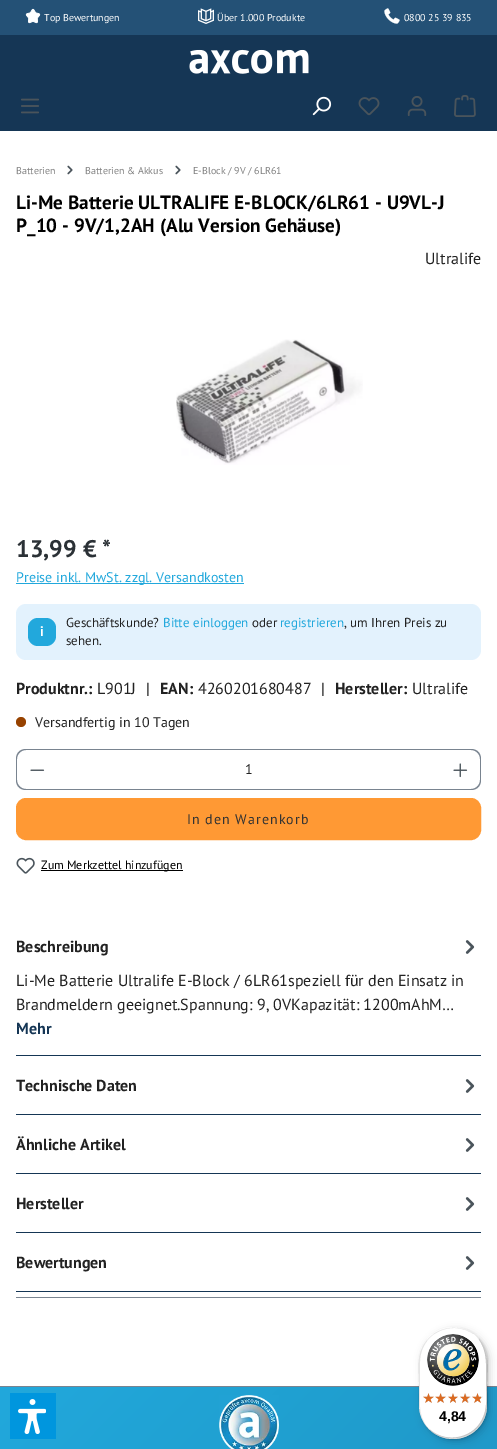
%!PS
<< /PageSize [497 1449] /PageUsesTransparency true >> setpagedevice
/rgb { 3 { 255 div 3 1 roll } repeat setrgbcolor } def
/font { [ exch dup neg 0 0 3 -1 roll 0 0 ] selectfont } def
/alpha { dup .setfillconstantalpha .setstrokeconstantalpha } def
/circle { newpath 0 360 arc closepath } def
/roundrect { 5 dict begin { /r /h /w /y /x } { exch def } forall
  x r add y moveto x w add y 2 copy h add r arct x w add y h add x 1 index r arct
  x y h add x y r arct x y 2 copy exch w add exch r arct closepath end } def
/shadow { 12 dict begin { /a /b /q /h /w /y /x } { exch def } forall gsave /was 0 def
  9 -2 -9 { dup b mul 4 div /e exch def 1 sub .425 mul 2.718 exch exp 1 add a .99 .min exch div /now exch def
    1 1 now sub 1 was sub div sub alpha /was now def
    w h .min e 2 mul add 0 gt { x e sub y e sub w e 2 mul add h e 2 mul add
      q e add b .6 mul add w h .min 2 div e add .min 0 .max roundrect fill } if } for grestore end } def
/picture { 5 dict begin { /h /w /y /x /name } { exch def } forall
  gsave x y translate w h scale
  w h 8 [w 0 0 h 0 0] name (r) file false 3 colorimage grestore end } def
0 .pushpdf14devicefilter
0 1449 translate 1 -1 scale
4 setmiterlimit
255 255 255 rgb
0 0 497 1449 rectfill
36 81 118 rgb
0 0 497 35 rectfill
(img/1.rgb) 25 8 16 16 picture
(img/2.rgb) 198 8 16 16 picture
(img/3.rgb) 384 8 16 16 picture
21 54 85 rgb
0 35 497 96 rectfill
(img/4.rgb) 189 49 120 25 picture
(img/5.rgb) 21 98 18 16 picture
(img/6.rgb) 312 96 20 20 picture
(img/7.rgb) 358 97 22 19 picture
(img/8.rgb) 407 96 20 20 picture
(img/9.rgb) 454 95 22 22 picture
(img/10.rgb) 67 165 6 10 picture
(img/10.rgb) 175 165 6 10 picture
(img/11.rgb) 176 339 187 126 picture
34 168 220 rgb
16 583 228 1 rectfill
227 242 253 rgb
16 604 465 56 10 roundrect fill
34 168 220 rgb
28 618 28 28 10 roundrect fill
151 66 0 rgb
21 722 5 circle fill
121 132 144 rgb
57 749 384 1 rectfill
57 789 384 1 rectfill
26 749 moveto 58 749 lineto 58 790 lineto 26 790 lineto 20 790 16 786 16 780 curveto 16 759 lineto 16 753 20 749 26 749 curveto closepath 26 750 moveto 58 750 lineto 58 789 lineto 26 789 lineto 21 789 17 785 17 780 curveto 17 759 lineto 17 754 21 750 26 750 curveto closepath eofill
(img/12.rgb) 30 769 15 2 picture
440 749 moveto 471 749 lineto 477 749 481 753 481 759 curveto 481 780 lineto 481 786 477 790 471 790 curveto 440 790 lineto closepath 440 750 moveto 471 750 lineto 476 750 480 754 480 759 curveto 480 780 lineto 480 785 476 789 471 789 curveto 440 789 lineto closepath eofill
(img/13.rgb) 453 763 15 15 picture
255 153 52 rgb
17 799 463 40 9 roundrect gsave fill grestore
2 setlinewidth
stroke
(img/14.rgb) 16 857 19 17 picture
[
  [41 870 142 1 0 0 0]
  [16 1297 465 1 121 132 144]
  [16 1055 465 1 21 54 85]
] { aload pop rgb rectfill } forall
(img/15.rgb) 465 940 10 14 picture
16 1114 465 1 rectfill
(img/15.rgb) 465 1079 10 14 picture
16 1173 465 1 rectfill
(img/15.rgb) 465 1138 10 14 picture
16 1232 465 1 rectfill
(img/15.rgb) 465 1197 10 14 picture
16 1291 465 1 rectfill
(img/15.rgb) 465 1256 10 14 picture
121 132 144 rgb
0 1386 497 1 rectfill
gsave 0 1387 moveto 497 1387 lineto 497 1449 lineto 0 1449 lineto closepath clip newpath
<< /ShadingType 2 /ColorSpace /DeviceRGB /Coords [75 1312 422 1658] /Extend [true true] /Function << /FunctionType 2 /Domain [0 1] /C0 [0.133 0.659 0.863] /C1 [0.118 0.588 0.769] /N 1 >> >> shfill grestore
(img/16.rgb) 219 1395 60 54 picture
0 150 222 rgb
10 1393 46 46 rectfill
(img/17.rgb) 18 1399 28 35 picture
0 0 0 rgb
422 1330 68 112 34 4 0.15 shadow
420 1328 68 112 34 1 0.15 shadow
255 255 255 rgb
419 1327 68 112 34 roundrect fill
0.1 alpha
0 0 0 rgb
454 1328 moveto 462 1328 470 1331 476 1336 curveto 459 1321 431 1327 422 1348 curveto 417 1358 419 1372 419 1383 curveto 419 1398 416 1415 428 1428 curveto 423 1422 420 1414 420 1406 curveto 420 1362 lineto 420 1343 435 1328 454 1328 curveto closepath fill
0.2 alpha
430 1430 moveto 447 1445 475 1439 484 1418 curveto 489 1408 487 1394 487 1383 curveto 487 1368 490 1351 478 1338 curveto 488 1351 486 1367 486 1382 curveto 486 1393 488 1407 483 1417 curveto 475 1438 447 1444 430 1430 curveto closepath fill
50 50 50 rgb
426 1426 moveto 433 1434 442 1439 453 1439 curveto 472 1439 487 1424 487 1405 curveto 487 1361 lineto 487 1350 482 1341 474 1334 curveto 481 1341 486 1350 486 1360 curveto 486 1404 lineto 486 1423 471 1438 452 1438 curveto 442 1438 433 1433 426 1426 curveto closepath fill
0.3 alpha
255 255 255 rgb
426 1426 moveto 433 1434 442 1439 453 1439 curveto 472 1439 487 1424 487 1405 curveto 487 1361 lineto 487 1350 482 1341 474 1334 curveto 481 1341 486 1350 486 1360 curveto 486 1404 lineto 486 1423 471 1438 452 1438 curveto 442 1438 433 1433 426 1426 curveto closepath fill
1 alpha
(img/18.rgb) 427 1334 52 52 picture
(img/19.rgb) 423 1393 11 10 picture
(img/20.rgb) 436 1393 10 10 picture
(img/21.rgb) 448 1393 10 10 picture
(img/22.rgb) 460 1393 11 10 picture
(img/22.rgb) 472 1393 11 10 picture
(img/23.rgb) 423 1393 11 10 picture
(img/24.rgb) 435 1393 11 10 picture
(img/25.rgb) 448 1393 10 10 picture
(img/26.rgb) 460 1393 10 10 picture
(img/27.rgb) 472 1393 9 10 picture
/PTSans-Regular 10 font
[
  [(Top Bewertungen) 44 21]
  [(Über 1.000 Produkte) 217 21]
  [(0800 25 39 835) 404 21]
] { aload pop moveto show } forall
128 128 128 rgb
[
  [(Batterien) 16 174]
  [(Batterien & Akkus) 85 174]
  [(E-Block / 9V / 6LR61) 193 174]
] { aload pop moveto show } forall
/PTSans-Bold 19.2 font
0 0 0 rgb
16 209 moveto (Li-Me Batterie ULTRALIFE E-BLOCK/6LR61 - U9VL-J) show
16 232 moveto (P_10 - 9V/1,2AH \(Alu Version Gehäuse\)) show
/PTSans-Regular 16 font
34 34 34 rgb
425 264 moveto (Ultralife) show
/PTSans-Bold 24 font
43 49 54 rgb
16 557 moveto (13,99 € *) show
/PTSans-Regular 14 font
34 168 220 rgb
16 582 moveto (Preise inkl. MwSt. zzgl. Versandkosten) show
/PTSans-Bold 14 font
255 255 255 rgb
40 636 moveto (i) show
/PTSans-Regular 13 font
34 34 34 rgb
66 627 moveto (Geschäftskunde?) show
34 168 220 rgb
163 627 moveto (Bitte einloggen) show
34 34 34 rgb
252 627 moveto (oder) show
34 168 220 rgb
280 627 moveto (registrieren) show
34 34 34 rgb
344 627 moveto (, um Ihren Preis zu) show
66 645 moveto (sehen.) show
/PTSans-Bold 16 font
16 694 moveto (Produktnr.:) show
/PTSans-Regular 16 font
97 694 moveto (L901J) show
146 694 moveto (|) show
/PTSans-Bold 16 font
160 694 moveto (EAN:) show
/PTSans-Regular 16 font
198 694 moveto (4260201680487) show
321 694 moveto (|) show
/PTSans-Bold 16 font
335 694 moveto (Hersteller:) show
/PTSans-Regular 16 font
412 694 moveto (Ultralife) show
/PTSans-Regular 14 font
35 727 moveto (Versandfertig in 10 Tagen) show
245 774 moveto (1) show
51 51 51 rgb
187 824 moveto 1 0 (In den Warenkorb) ashow
/PTSans-Regular 12 font
0 0 0 rgb
41 869 moveto (Zum Merkzettel hinzufügen) show
/PTSans-Bold 16 font
34 34 34 rgb
16 952 moveto (Beschreibung) show
/PTSans-Regular 16 font
16 986 moveto (Li-Me Batterie Ultralife E-Block / 6LR61speziell für den Einsatz in) show
16 1010 moveto (Brandmeldern geeignet.Spannung: 9, 0VKapazität: 1200mAhM…) show
/PTSans-Bold 16 font
21 54 85 rgb
16 1034 moveto (Mehr) show
34 34 34 rgb
[
  [(Technische Daten) 16 1091]
  [(Ähnliche Artikel) 16 1150]
  [(Hersteller) 16 1209]
  [(Bewertungen) 16 1268]
] { aload pop moveto show } forall
/LiberationSans-Bold 14 font
0 0 0 rgb
439 1421 moveto (4,84) show
.poppdf14devicefilter showpage
